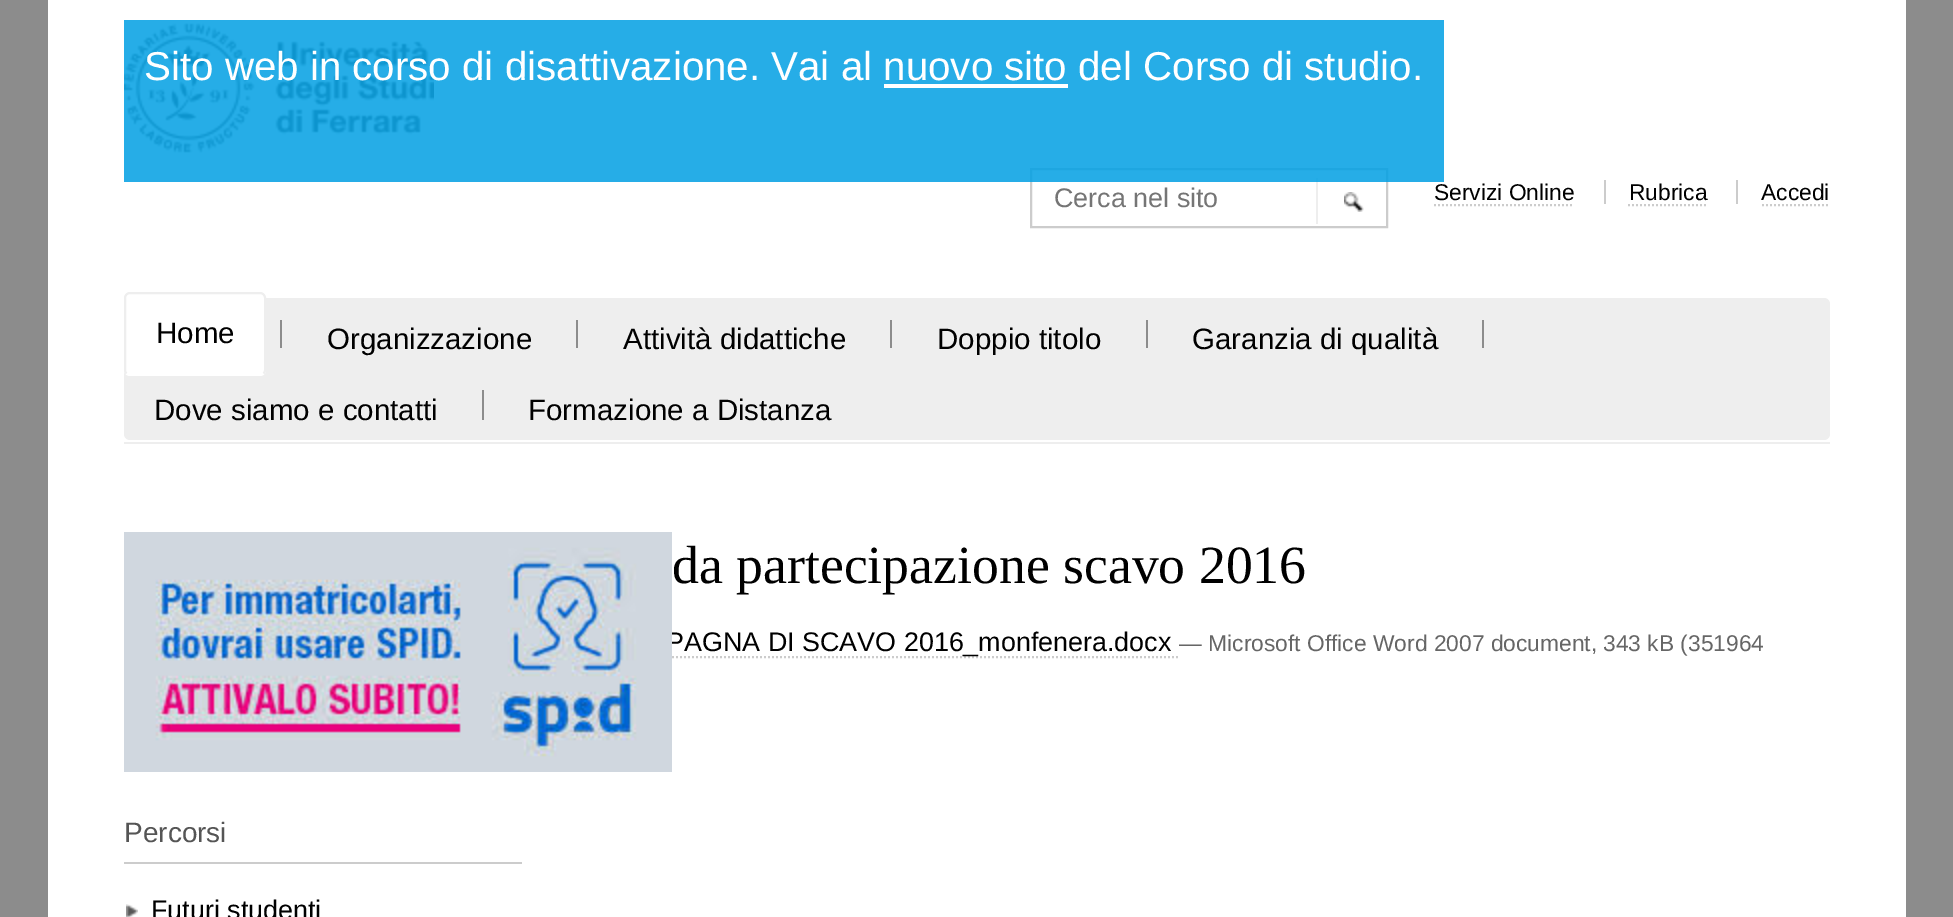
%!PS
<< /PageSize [1953 917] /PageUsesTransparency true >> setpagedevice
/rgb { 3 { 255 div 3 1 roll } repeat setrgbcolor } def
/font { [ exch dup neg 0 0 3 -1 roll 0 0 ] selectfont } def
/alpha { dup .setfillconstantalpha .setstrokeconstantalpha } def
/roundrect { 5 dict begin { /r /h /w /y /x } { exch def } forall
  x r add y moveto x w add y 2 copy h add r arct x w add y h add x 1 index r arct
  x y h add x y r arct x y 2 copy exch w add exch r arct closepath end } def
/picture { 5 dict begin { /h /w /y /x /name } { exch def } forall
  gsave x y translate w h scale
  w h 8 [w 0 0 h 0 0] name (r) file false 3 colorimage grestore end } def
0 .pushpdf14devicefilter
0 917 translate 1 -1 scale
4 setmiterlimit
140 140 140 rgb
0 0 1953 917 rectfill
255 255 255 rgb
48 0 1858 917 rectfill
(img/1.rgb) 124 23 310 130 picture
204 204 204 rgb
2 setlinewidth
1031 169 356 58 rectstroke
[
  [1316 178 2 46 238 238 238]
] { aload pop rgb rectfill } forall
0.85 alpha
[
  [124 20 1320 162 0 159 227]
] { aload pop rgb rectfill } forall
1 alpha
[
  [884 84 184 4 255 255 255]
] { aload pop rgb rectfill } forall
(img/2.rgb) 1344 192 20 20 picture
204 204 204 rgb
[2 2] 0 setdash
1434 205 moveto 1574 205 lineto stroke
1604 180 2 24 rectfill
1628 205 moveto 1708 205 lineto stroke
1736 180 2 24 rectfill
1762 205 moveto 1830 205 lineto stroke
238 238 238 rgb
124 442 1706 2 rectfill
124 298 1706 142 6 roundrect fill
255 255 255 rgb
124 292 142 84 6 roundrect fill
238 238 238 rgb
[] 0 setdash
126.5 373.5 moveto 125.5 372.5 125 371.5 125 370 curveto 125 298 lineto 125 296.5 125.5 295.5 126.5 294.5 curveto 127.5 293.5 128.5 293 130 293 curveto 260 293 lineto 261.5 293 262.5 293.5 263.5 294.5 curveto 264.5 295.5 265 296.5 265 298 curveto 265 370 lineto 265 371.5 264.5 372.5 263.5 373.5 curveto stroke
[
  [280 320 2 28 140 140 140]
  [576 320 2 28 140 140 140]
  [890 320 2 28 140 140 140]
  [1146 320 2 28 140 140 140]
  [1482 320 2 28 140 140 140]
  [482 390 2 30 140 140 140]
] { aload pop rgb rectfill } forall
204 204 204 rgb
[2 2] 0 setdash
600 657 moveto 1178 657 lineto stroke
124 862 398 2 rectfill
(img/4.rgb) 126 904 12 13 picture
/LiberationSans-Regular 40.3 font
255 255 255 rgb
144 80 moveto (Sito web in corso di disattivazione. Vai al nuovo sito del Corso di studio.) show
/LiberationSans-Regular 26.9 font
117 117 117 rgb
1054 207 moveto (Cerca nel sito) show
/LiberationSans-Regular 22.8 font
0 0 0 rgb
[
  [(Servizi Online) 1434 200]
  [(Rubrica) 1629 200]
  [(Accedi) 1761 200]
] { aload pop moveto show } forall
/LiberationSans-Regular 29.5 font
[
  [(Home) 156 343]
  [(Organizzazione) 327 349]
  [(Attività didattiche) 623 349]
  [(Doppio titolo) 937 349]
  [(Garanzia di qualità) 1192 349]
  [(Dove siamo e contatti) 154 420]
  [(Formazione a Distanza) 528 420]
] { aload pop moveto show } forall
/LiberationSerif-Regular 53.75 font
672 583 moveto (da partecipazione scavo 2016) show
/LiberationSans-Regular 26.9 font
666 651 moveto (PAGNA DI SCAVO 2016_monfenera.docx) show
/LiberationSans-Regular 22.8 font
102 102 102 rgb
1179 651 moveto (— Microsoft Office Word 2007 document,) show
1603 651 moveto (343 kB \(351964) show
(img/3.rgb) 124 532 548 240 picture
/LiberationSans-Regular 28 font
85 85 85 rgb
124 842 moveto (Percorsi) show
/LiberationSans-Regular 26.9 font
0 0 0 rgb
151 919 moveto (Futuri studenti) show
.poppdf14devicefilter showpage
